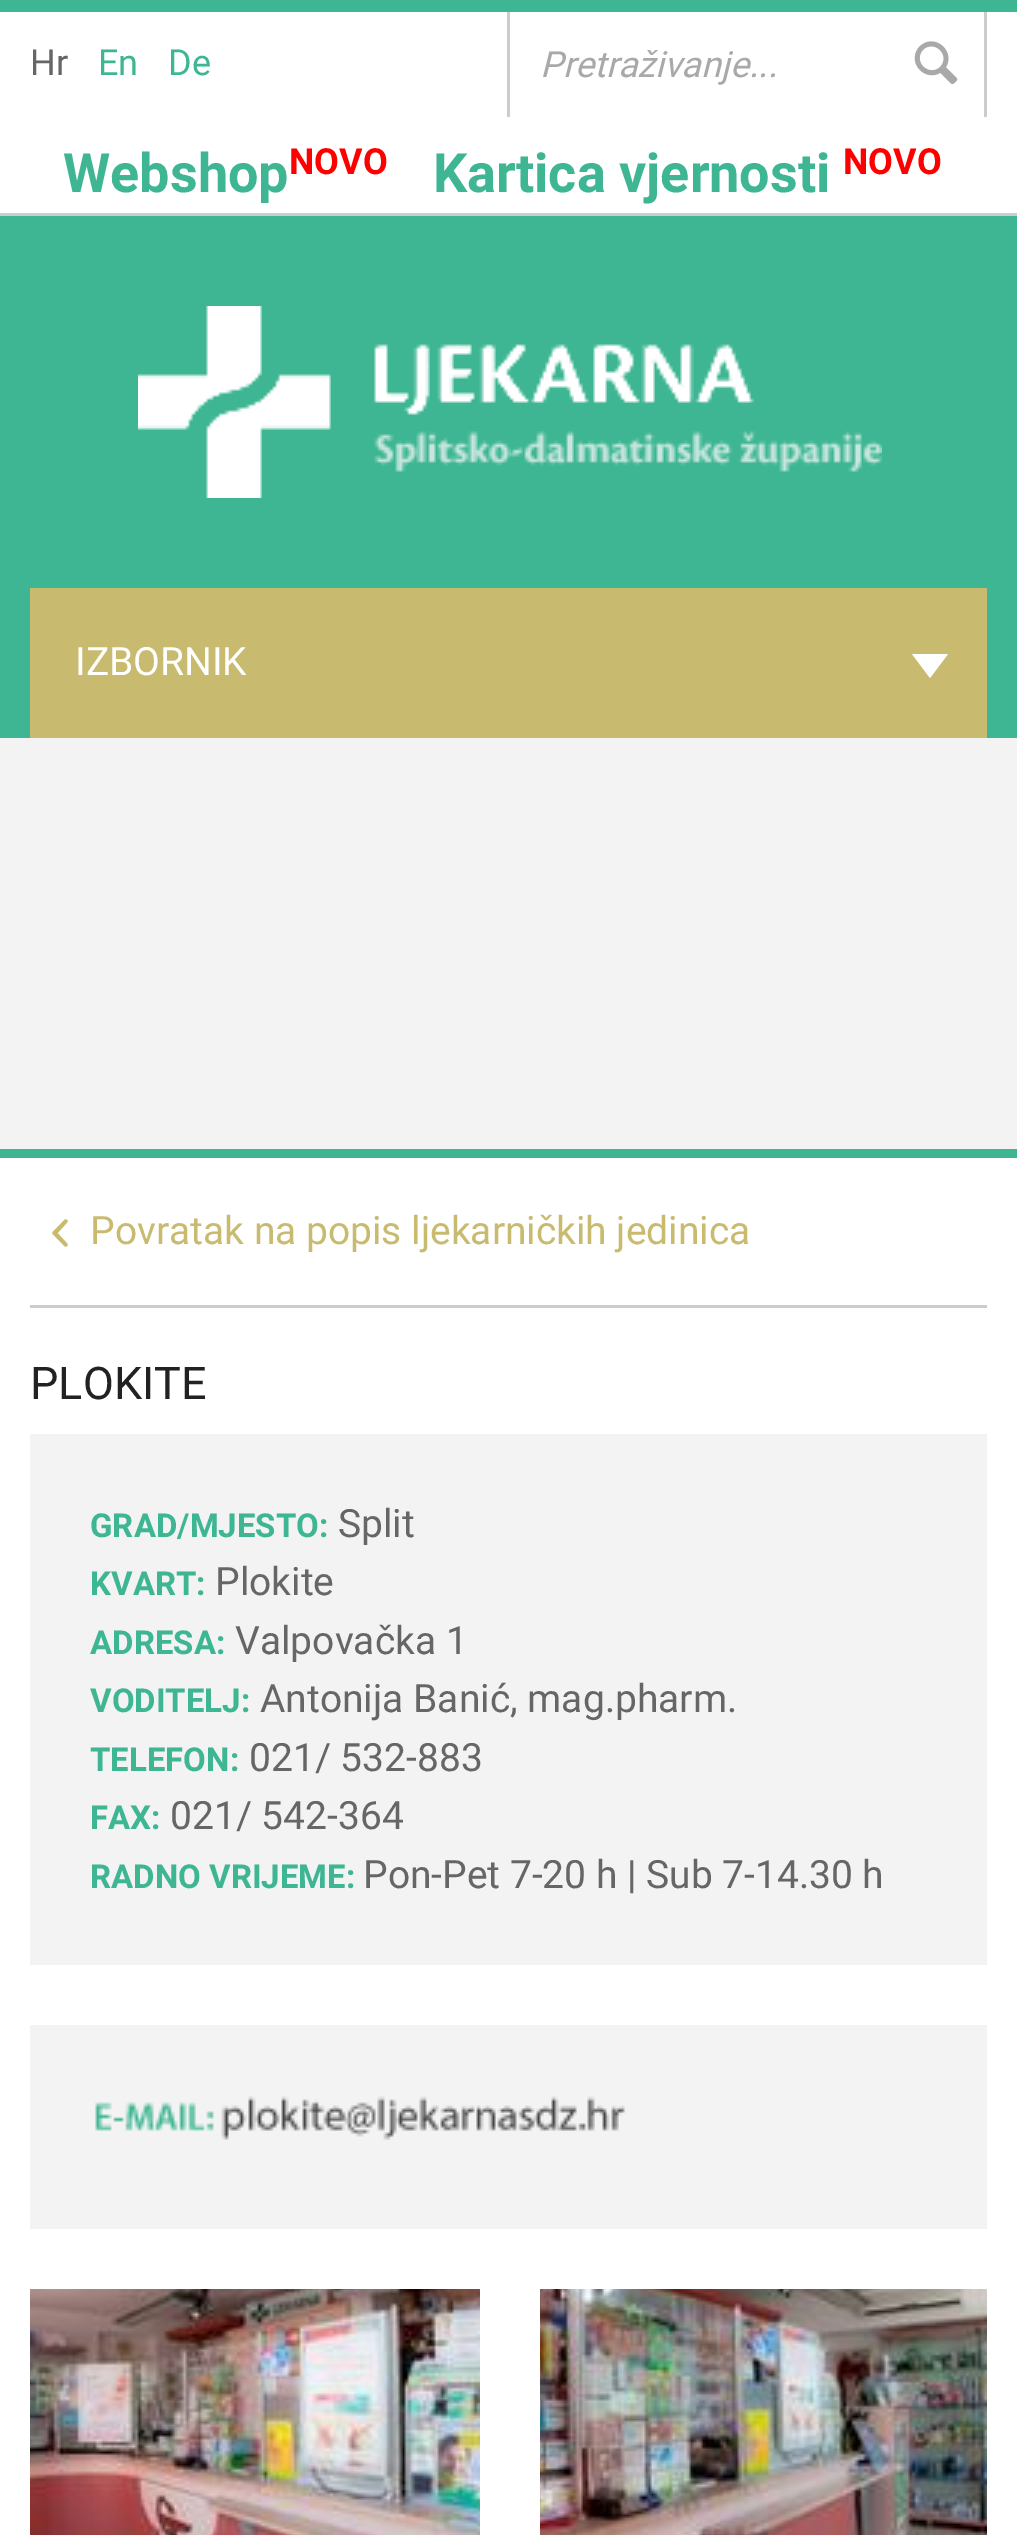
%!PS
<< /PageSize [1017 2543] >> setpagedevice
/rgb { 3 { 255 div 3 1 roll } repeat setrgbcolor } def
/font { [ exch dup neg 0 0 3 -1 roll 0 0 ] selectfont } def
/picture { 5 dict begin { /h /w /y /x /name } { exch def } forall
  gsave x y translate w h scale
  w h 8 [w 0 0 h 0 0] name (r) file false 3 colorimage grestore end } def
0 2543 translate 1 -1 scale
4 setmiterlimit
255 255 255 rgb
0 0 1017 2543 rectfill
[
  [0 0 1017 12 63 182 147]
  [984 12 3 105 204 204 204]
  [507 12 3 105 204 204 204]
] { aload pop rgb rectfill } forall
(img/1.rgb) 914 41 44 43 picture
63 182 147 rgb
0 216 1017 522 rectfill
204 204 204 rgb
0 213 1017 3 rectfill
(img/2.rgb) 138 306 744 192 picture
200 186 110 rgb
30 588 957 150 rectfill
255 255 255 rgb
912 654 moveto 948 654 lineto 930 678 lineto closepath fill
[
  [0 738 1017 411 243 243 243]
  [0 1149 1017 9 63 182 147]
  [30 1305 957 3 204 204 204]
] { aload pop rgb rectfill } forall
(img/3.rgb) 52 1219 16 28 picture
243 243 243 rgb
30 1434 957 531 rectfill
30 2025 957 204 rectfill
(img/4.rgb) 95 2096 530 44 picture
(img/5.rgb) 30 2289 450 246 picture
(img/6.rgb) 540 2289 447 246 picture
/Roboto-Regular 36 font
102 102 102 rgb
30 75 moveto (Hr) show
63 182 147 rgb
98 75 moveto (En) show
168 75 moveto (De) show
/Roboto-Italic 36 font
169 169 169 rgb
540 77 moveto (Pretraživanje...) show
/Roboto-Bold 54 font
63 182 147 rgb
63 192 moveto (Webshop) show
/Roboto-Bold 36 font
255 0 0 rgb
289 174 moveto (NOVO) show
/Roboto-Bold 54 font
63 182 147 rgb
433 192 moveto (Kartica vjernosti) show
/Roboto-Bold 36 font
255 0 0 rgb
843 174 moveto (NOVO) show
/Roboto-Regular 39 font
255 255 255 rgb
75 675 moveto (IZBORNIK) show
200 186 110 rgb
90 1244 moveto (Povratak na popis ljekarničkih jedinica) show
/Roboto-Regular 45 font
34 34 34 rgb
30 1399 moveto (PLOKITE) show
/Roboto-Bold 33 font
63 182 147 rgb
90 1537 moveto (GRAD/MJESTO:) show
/Roboto-Regular 39 font
102 102 102 rgb
338 1537 moveto (Split) show
/Roboto-Bold 33 font
63 182 147 rgb
90 1595 moveto (KVART:) show
/Roboto-Regular 39 font
102 102 102 rgb
215 1595 moveto (Plokite) show
/Roboto-Bold 33 font
63 182 147 rgb
90 1654 moveto (ADRESA:) show
/Roboto-Regular 39 font
102 102 102 rgb
235 1654 moveto (Valpovačka 1) show
/Roboto-Bold 33 font
63 182 147 rgb
90 1712 moveto (VODITELJ:) show
/Roboto-Regular 39 font
102 102 102 rgb
260 1712 moveto (Antonija Banić, mag.pharm.) show
/Roboto-Bold 33 font
63 182 147 rgb
90 1771 moveto (TELEFON:) show
/Roboto-Regular 39 font
102 102 102 rgb
249 1771 moveto (021/ 532-883) show
/Roboto-Bold 33 font
63 182 147 rgb
90 1829 moveto (FAX:) show
/Roboto-Regular 39 font
102 102 102 rgb
170 1829 moveto (021/ 542-364) show
/Roboto-Bold 33 font
63 182 147 rgb
90 1888 moveto (RADNO VRIJEME:) show
/Roboto-Regular 39 font
102 102 102 rgb
363 1888 moveto (Pon-Pet 7-20 h | Sub 7-14.30 h) show
showpage
